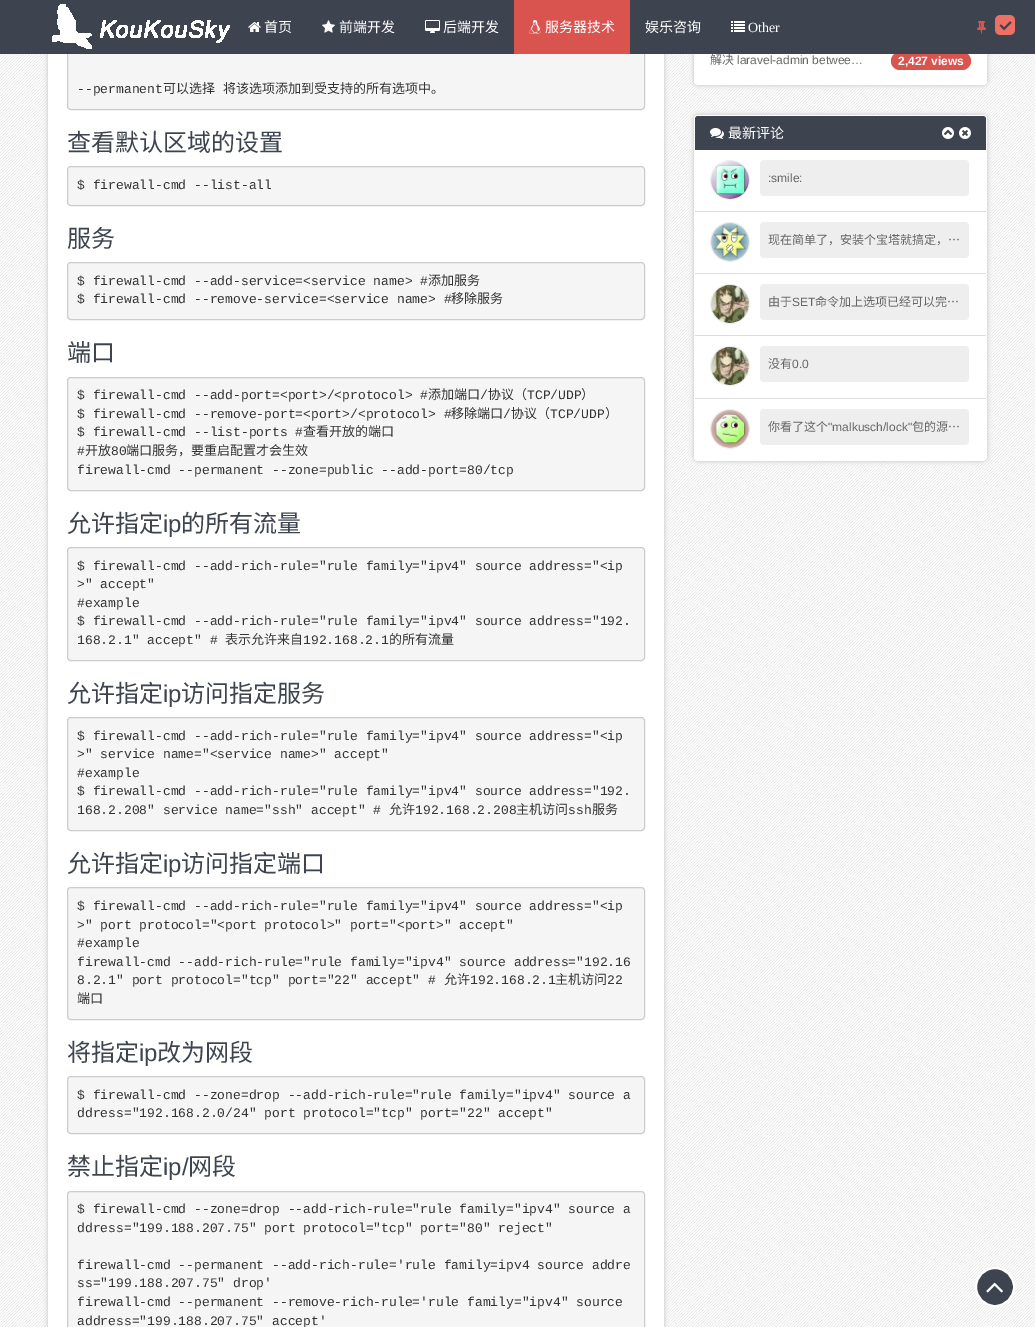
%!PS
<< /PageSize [1035 1327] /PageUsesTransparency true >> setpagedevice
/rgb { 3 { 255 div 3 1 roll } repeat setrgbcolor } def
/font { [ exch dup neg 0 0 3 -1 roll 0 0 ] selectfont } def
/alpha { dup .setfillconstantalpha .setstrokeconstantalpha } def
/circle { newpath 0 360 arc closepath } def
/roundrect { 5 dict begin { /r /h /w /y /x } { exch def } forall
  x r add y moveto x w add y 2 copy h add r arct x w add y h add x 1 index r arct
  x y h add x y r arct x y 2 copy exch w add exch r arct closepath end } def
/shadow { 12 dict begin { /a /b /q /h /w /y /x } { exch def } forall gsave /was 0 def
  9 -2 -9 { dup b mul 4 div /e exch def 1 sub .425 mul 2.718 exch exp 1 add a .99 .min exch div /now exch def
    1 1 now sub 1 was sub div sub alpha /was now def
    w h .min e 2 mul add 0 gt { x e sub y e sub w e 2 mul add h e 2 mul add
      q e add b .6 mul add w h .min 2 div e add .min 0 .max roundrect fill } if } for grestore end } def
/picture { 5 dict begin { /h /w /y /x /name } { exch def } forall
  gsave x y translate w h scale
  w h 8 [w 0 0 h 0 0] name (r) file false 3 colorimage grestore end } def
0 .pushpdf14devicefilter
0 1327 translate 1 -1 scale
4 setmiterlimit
255 255 255 rgb
0 0 1035 1327 rectfill
(img/1.rgb) 0 54 1035 1273 picture
194 194 194 rgb
48 -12 616 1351 4 2.5 1 shadow
255 255 255 rgb
48 54 616 1273 rectfill
245 245 245 rgb
67.5 -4.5 577 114 3.5 roundrect gsave fill grestore
204 204 204 rgb
stroke
245 245 245 rgb
67.5 166.5 577 39 3.5 roundrect gsave fill grestore
204 204 204 rgb
stroke
245 245 245 rgb
67.5 262.5 577 57 3.5 roundrect gsave fill grestore
204 204 204 rgb
stroke
245 245 245 rgb
67.5 377.5 577 113 3.5 roundrect gsave fill grestore
204 204 204 rgb
stroke
245 245 245 rgb
67.5 547.5 577 113 3.5 roundrect gsave fill grestore
204 204 204 rgb
stroke
245 245 245 rgb
67.5 717.5 577 113 3.5 roundrect gsave fill grestore
204 204 204 rgb
stroke
245 245 245 rgb
67.5 887.5 577 132 3.5 roundrect gsave fill grestore
204 204 204 rgb
stroke
245 245 245 rgb
67.5 1076.5 577 57 3.5 roundrect gsave fill grestore
204 204 204 rgb
stroke
245 245 245 rgb
67.5 1191.5 577 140 3.5 roundrect gsave fill grestore
204 204 204 rgb
stroke
194 194 194 rgb
694 -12 293 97 4 2.5 1 shadow
255 255 255 rgb
694 -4 293 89 4 roundrect fill
217 83 79 rgb
891 52 80 18 9 roundrect fill
194 194 194 rgb
694 115 293 346 4 2.5 1 shadow
255 255 255 rgb
694 115 293 346 4 roundrect fill
61 68 80 rgb
698 116 moveto 983 116 lineto 984.5 116 986 117.5 986 119 curveto 986 150 lineto 695 150 lineto 695 119 lineto 695 117.5 696.5 116 698 116 curveto closepath fill
(img/10.rgb) 710 128 14 11 picture
(img/11.rgb) 942 127 12 12 picture
(img/12.rgb) 959 127 12 12 picture
221 221 221 rgb
695 211 291 1 rectfill
238 238 238 rgb
730 180 19.5 circle stroke
(img/13.rgb) 711 161 38 38 picture
760 160 209 36 4 roundrect fill
221 221 221 rgb
695 273 291 1 rectfill
238 238 238 rgb
730 242 19.5 circle stroke
(img/14.rgb) 711 223 38 38 picture
760 222 209 36 4 roundrect fill
221 221 221 rgb
695 335 291 1 rectfill
238 238 238 rgb
730 304 19.5 circle stroke
(img/15.rgb) 711 285 38 38 picture
760 284 209 36 4 roundrect fill
730 366 19.5 circle stroke
(img/16.rgb) 711 347 38 38 picture
760 346 209 36 4 roundrect fill
221 221 221 rgb
695 398 291 1 rectfill
238 238 238 rgb
730 429 19.5 circle stroke
(img/17.rgb) 711 410 38 38 picture
760 409 209 36 4 roundrect fill
61 68 80 rgb
995 1287 19 circle gsave fill grestore
255 255 255 rgb
2 setlinewidth
stroke
(img/18.rgb) 986 1282 17 11 picture
/LiberationMono-Regular 13 font
51 51 51 rgb
77 93 moveto (--permanent) show
/NotoSansCJKSC-Regular 13 font
163 93 moveto 5 0 32 (可以选择 将该选项添加到受支持的所有选项中。) widthshow
/NotoSansCJKSC-Regular 24 font
61 68 80 rgb
67 151 moveto (查看默认区域的设置) show
/LiberationMono-Regular 13 font
51 51 51 rgb
77 189 moveto ($ firewall-cmd --list-all) show
/NotoSansCJKSC-Regular 24 font
61 68 80 rgb
67 247 moveto (服务) show
/LiberationMono-Regular 13 font
51 51 51 rgb
77 285 moveto ($ firewall-cmd --add-service=<service name> #) show
/NotoSansCJKSC-Regular 13 font
428 285 moveto (添加服务) show
/LiberationMono-Regular 13 font
77 303 moveto ($ firewall-cmd --remove-service=<service name> #) show
/NotoSansCJKSC-Regular 13 font
451 303 moveto (移除服务) show
/NotoSansCJKSC-Regular 24 font
61 68 80 rgb
67 361 moveto (端口) show
/LiberationMono-Regular 13 font
51 51 51 rgb
77 399 moveto ($ firewall-cmd --add-port=<port>/<protocol> #) show
/NotoSansCJKSC-Regular 13 font
428 399 moveto (添加端口) show
/LiberationMono-Regular 13 font
480 399 moveto (/) show
/NotoSansCJKSC-Regular 13 font
488 399 moveto (协议（) show
/LiberationMono-Regular 13 font
527 399 moveto (TCP/UDP) show
/NotoSansCJKSC-Regular 13 font
581 399 moveto (）) show
/LiberationMono-Regular 13 font
77 418 moveto ($ firewall-cmd --remove-port=<port>/<protocol> #) show
/NotoSansCJKSC-Regular 13 font
451 418 moveto (移除端口) show
/LiberationMono-Regular 13 font
503 418 moveto (/) show
/NotoSansCJKSC-Regular 13 font
511 418 moveto (协议（) show
/LiberationMono-Regular 13 font
550 418 moveto (TCP/UDP) show
/NotoSansCJKSC-Regular 13 font
605 418 moveto (）) show
/LiberationMono-Regular 13 font
77 436 moveto ($ firewall-cmd --list-ports #) show
/NotoSansCJKSC-Regular 13 font
303 436 moveto (查看开放的端口) show
/LiberationMono-Regular 13 font
77 455 moveto (#) show
/NotoSansCJKSC-Regular 13 font
85 455 moveto (开放) show
/LiberationMono-Regular 13 font
111 455 moveto (80) show
/NotoSansCJKSC-Regular 13 font
126 455 moveto (端口服务，要重启配置才会生效) show
/LiberationMono-Regular 13 font
77 474 moveto (firewall-cmd --permanent --zone=public --add-port=80/tcp) show
/NotoSansCJKSC-Regular 24 font
61 68 80 rgb
67 532 moveto (允许指定) show
/LiberationSans-Regular 24 font
163 532 moveto (ip) show
/NotoSansCJKSC-Regular 24 font
181 532 moveto (的所有流量) show
/LiberationMono-Regular 13 font
51 51 51 rgb
[
  [($ firewall-cmd --add-rich-rule="rule family="ipv4" source address="<ip) 77 570]
  [(>" accept") 77 588]
  [(#example) 77 607]
  [($ firewall-cmd --add-rich-rule="rule family="ipv4" source address="192.) 77 625]
  [(168.2.1" accept" #) 77 644]
] { aload pop moveto show } forall
/NotoSansCJKSC-Regular 13 font
225 644 moveto (表示允许来自) show
/LiberationMono-Regular 13 font
303 644 moveto (192.168.2.1) show
/NotoSansCJKSC-Regular 13 font
389 644 moveto (的所有流量) show
/NotoSansCJKSC-Regular 24 font
61 68 80 rgb
67 702 moveto (允许指定) show
/LiberationSans-Regular 24 font
163 702 moveto (ip) show
/NotoSansCJKSC-Regular 24 font
181 702 moveto (访问指定服务) show
/LiberationMono-Regular 13 font
51 51 51 rgb
[
  [($ firewall-cmd --add-rich-rule="rule family="ipv4" source address="<ip) 77 740]
  [(>" service name="<service name>" accept") 77 758]
  [(#example) 77 777]
  [($ firewall-cmd --add-rich-rule="rule family="ipv4" source address="192.) 77 795]
  [(168.2.208" service name="ssh" accept" #) 77 814]
] { aload pop moveto show } forall
/NotoSansCJKSC-Regular 13 font
389 814 moveto (允许) show
/LiberationMono-Regular 13 font
415 814 moveto (192.168.2.208) show
/NotoSansCJKSC-Regular 13 font
516 814 moveto (主机访问) show
/LiberationMono-Regular 13 font
568 814 moveto (ssh) show
/NotoSansCJKSC-Regular 13 font
592 814 moveto (服务) show
/NotoSansCJKSC-Regular 24 font
61 68 80 rgb
67 872 moveto (允许指定) show
/LiberationSans-Regular 24 font
163 872 moveto (ip) show
/NotoSansCJKSC-Regular 24 font
181 872 moveto (访问指定端口) show
/LiberationMono-Regular 13 font
51 51 51 rgb
[
  [($ firewall-cmd --add-rich-rule="rule family="ipv4" source address="<ip) 77 910]
  [(>" port protocol="<port protocol>" port="<port>" accept") 77 929]
  [(#example) 77 947]
  [(firewall-cmd --add-rich-rule="rule family="ipv4" source address="192.16) 77 966]
  [(8.2.1" port protocol="tcp" port="22" accept" #) 77 984]
] { aload pop moveto show } forall
/NotoSansCJKSC-Regular 13 font
444 984 moveto (允许) show
/LiberationMono-Regular 13 font
470 984 moveto (192.168.2.1) show
/NotoSansCJKSC-Regular 13 font
555 984 moveto (主机访问) show
/LiberationMono-Regular 13 font
607 984 moveto (22) show
/NotoSansCJKSC-Regular 13 font
77 1003 moveto (端口) show
/NotoSansCJKSC-Regular 24 font
61 68 80 rgb
67 1061 moveto (将指定) show
/LiberationSans-Regular 24 font
139 1061 moveto (ip) show
/NotoSansCJKSC-Regular 24 font
157 1061 moveto (改为网段) show
/LiberationMono-Regular 13 font
51 51 51 rgb
77 1099 moveto ($ firewall-cmd --zone=drop --add-rich-rule="rule family="ipv4" source a) show
77 1117 moveto (ddress="192.168.2.0/24" port protocol="tcp" port="22" accept") show
/NotoSansCJKSC-Regular 24 font
61 68 80 rgb
67 1175 moveto (禁止指定) show
/LiberationSans-Regular 24 font
163 1175 moveto (ip/) show
/NotoSansCJKSC-Regular 24 font
188 1175 moveto (网段) show
/LiberationMono-Regular 13 font
51 51 51 rgb
[
  [($ firewall-cmd --zone=drop --add-rich-rule="rule family="ipv4" source a) 77 1213]
  [(ddress="199.188.207.75" port protocol="tcp" port="80" reject") 77 1232]
  [(firewall-cmd --permanent --add-rich-rule='rule family=ipv4 source addre) 77 1269]
  [(ss="199.188.207.75" drop') 77 1287]
  [(firewall-cmd --permanent --remove-rich-rule='rule family="ipv4" source) 77 1306]
  [(address="199.188.207.75" accept') 77 1325]
] { aload pop moveto show } forall
/NotoSansCJKSC-Regular 12 font
102 102 102 rgb
710 64 moveto (解决) show
61 68 80 rgb
0 0 1035 54 rectfill
(img/9.rgb) 995 15 20 20 picture
(img/8.rgb) 977 21 9 13 picture
/LiberationSerif-Regular 14 font
255 255 255 rgb
748 32 moveto (Other) show
(img/7.rgb) 731 21 14 11 picture
/NotoSansCJKSC-Regular 14 font
645 32 moveto (娱乐咨询) show
217 83 79 rgb
514 0 116 54 rectfill
255 255 255 rgb
545 32 moveto (服务器技术) show
(img/6.rgb) 529 20 12 14 picture
443 32 moveto (后端开发) show
(img/5.rgb) 425 20 15 13 picture
339 32 moveto (前端开发) show
(img/4.rgb) 322 20 13 13 picture
264 32 moveto (首页) show
(img/3.rgb) 248 22 13 10 picture
(img/2.rgb) 52 4 178 45 picture
/LiberationSans-Regular 12 font
102 102 102 rgb
737 64 moveto (laravel-admin betwee…) show
/LiberationSans-Bold 12 font
255 255 255 rgb
898 65 moveto (2,427 views) show
/NotoSansCJKSC-Regular 14 font
728 138 moveto (最新评论) show
/LiberationSans-Regular 12 font
102 102 102 rgb
768 182 moveto (:smile:) show
/NotoSansCJKSC-Regular 12 font
768 244 moveto (现在简单了，安装个宝塔就搞定，…) show
768 306 moveto (由于) show
/LiberationSans-Regular 12 font
792 306 moveto (SET) show
/NotoSansCJKSC-Regular 12 font
815 306 moveto (命令加上选项已经可以完…) show
768 368 moveto (没有) show
/LiberationSans-Regular 12 font
792 368 moveto (0.0) show
/NotoSansCJKSC-Regular 12 font
768 431 moveto (你看了这个) show
/LiberationSans-Regular 12 font
828 431 moveto ("malkusch/lock") show
/NotoSansCJKSC-Regular 12 font
912 431 moveto (包的源…) show
.poppdf14devicefilter showpage
